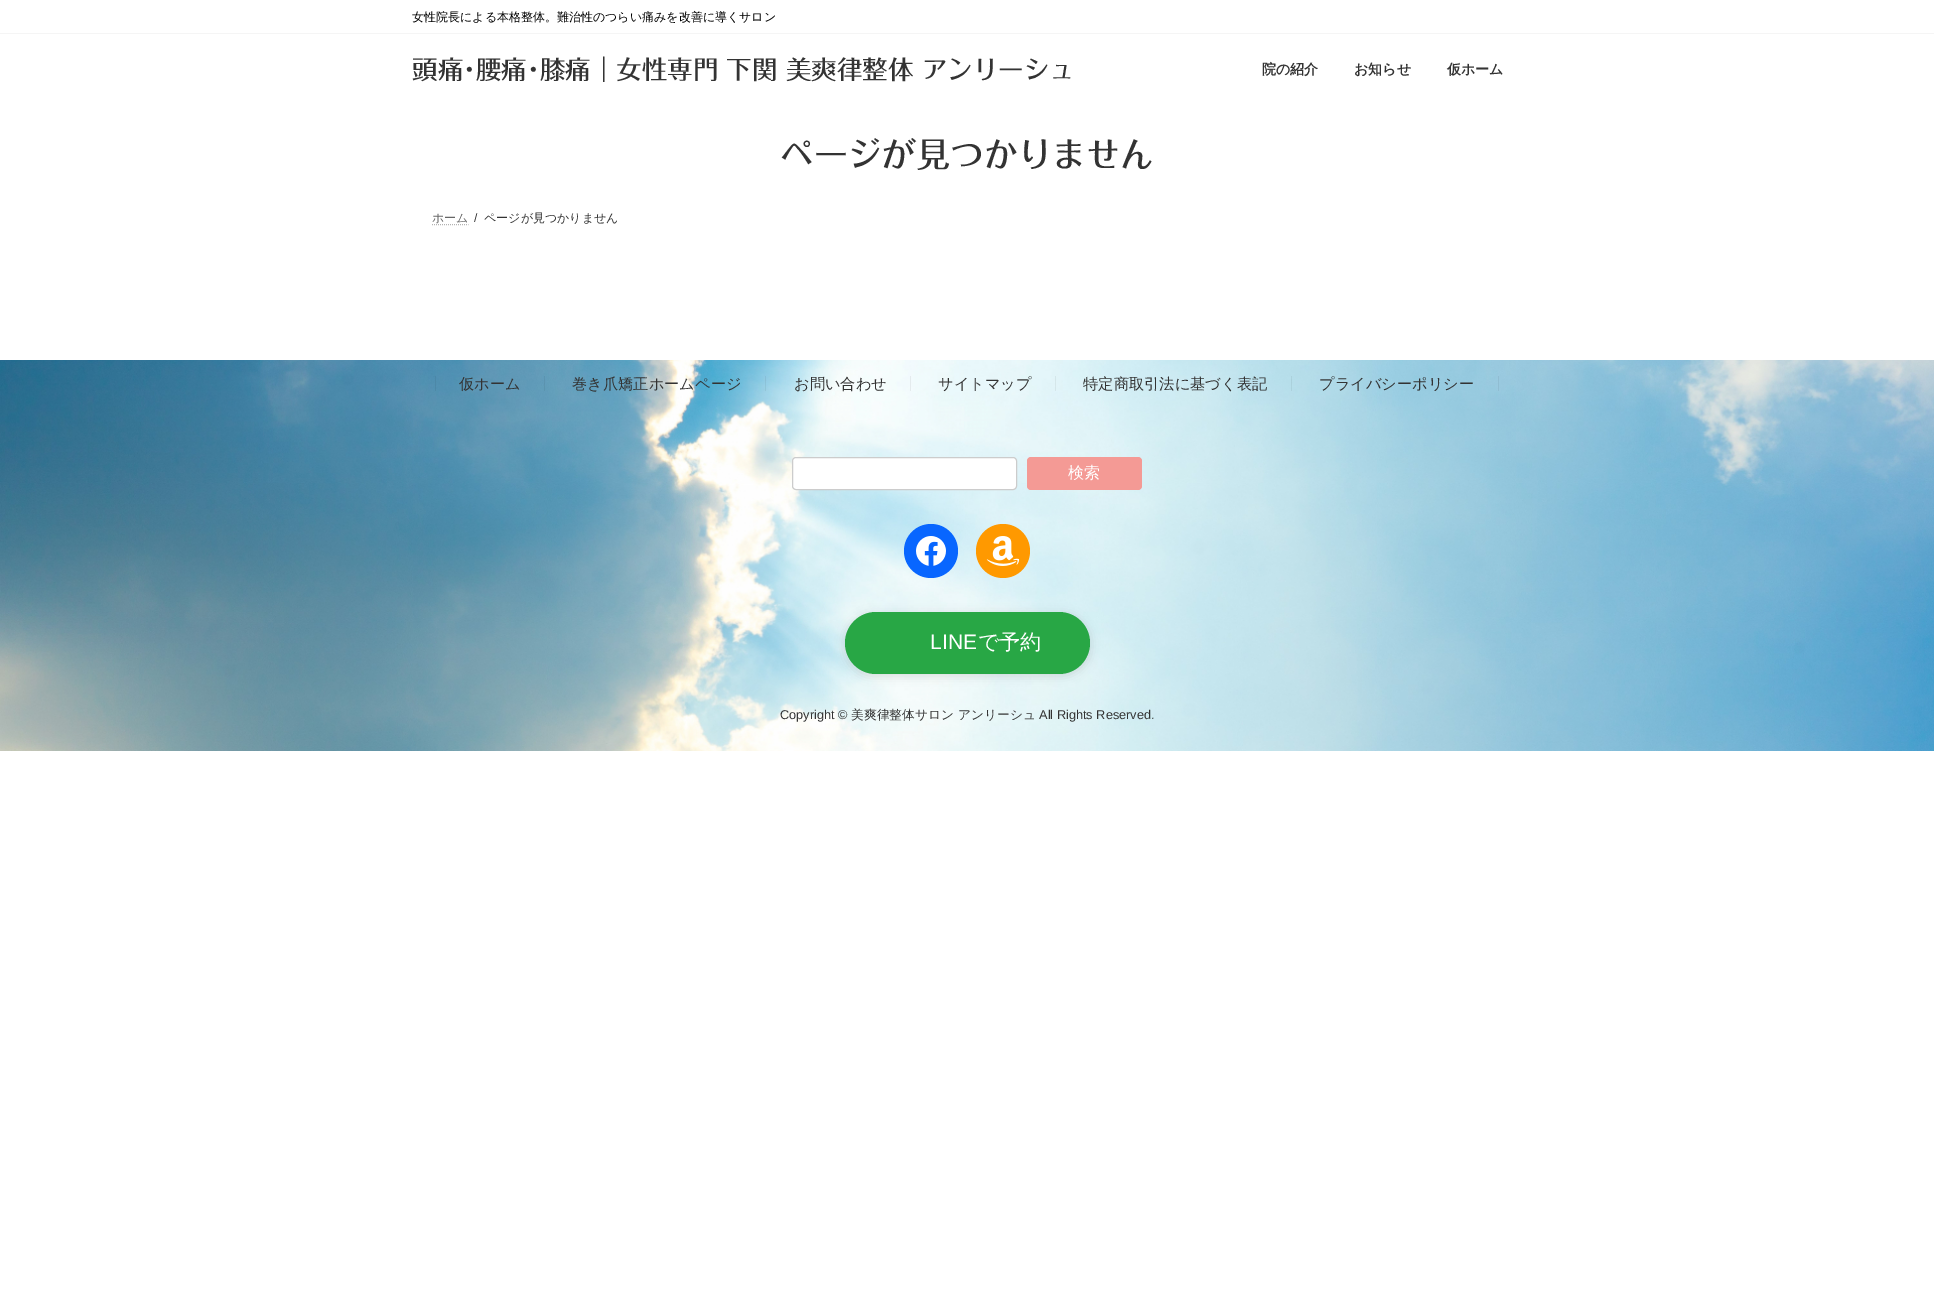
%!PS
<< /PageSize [1934 1303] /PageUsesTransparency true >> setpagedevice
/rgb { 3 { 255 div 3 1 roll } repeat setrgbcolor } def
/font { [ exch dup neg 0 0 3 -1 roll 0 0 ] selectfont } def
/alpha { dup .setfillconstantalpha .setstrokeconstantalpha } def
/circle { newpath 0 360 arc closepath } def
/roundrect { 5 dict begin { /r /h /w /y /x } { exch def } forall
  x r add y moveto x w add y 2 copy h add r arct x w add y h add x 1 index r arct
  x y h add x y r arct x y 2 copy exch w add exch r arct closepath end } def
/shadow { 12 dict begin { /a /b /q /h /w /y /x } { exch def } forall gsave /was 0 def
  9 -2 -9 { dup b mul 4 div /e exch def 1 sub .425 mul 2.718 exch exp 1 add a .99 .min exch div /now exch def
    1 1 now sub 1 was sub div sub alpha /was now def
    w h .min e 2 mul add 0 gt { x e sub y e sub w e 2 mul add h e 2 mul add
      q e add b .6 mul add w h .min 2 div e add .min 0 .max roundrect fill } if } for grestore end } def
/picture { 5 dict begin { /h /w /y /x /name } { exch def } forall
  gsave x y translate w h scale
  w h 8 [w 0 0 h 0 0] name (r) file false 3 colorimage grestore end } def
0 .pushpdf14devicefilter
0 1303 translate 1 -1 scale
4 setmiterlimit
255 255 255 rgb
0 0 1934 1303 rectfill
245 245 245 rgb
0 33 1934 1 rectfill
179 179 179 rgb
[1 1] 0 setdash
432 224.5 moveto 468.5 224.5 lineto stroke
(img/1.rgb) 0 360 1934 391 picture
0.06 alpha
[
  [544 376 1 15 0 0 0]
  [435 376 1 15 0 0 0]
  [765 376 1 15 0 0 0]
] { aload pop rgb rectfill } forall
1 alpha
[
  [910 376 1 15 228 235 237]
] { aload pop rgb rectfill } forall
0.06 alpha
[
  [1055 376 1 15 0 0 0]
  [1291 376 1 15 0 0 0]
] { aload pop rgb rectfill } forall
1 alpha
[
  [1498 376 1 15 144 189 210]
] { aload pop rgb rectfill } forall
255 255 255 rgb
792.5 457.5 224 32 3.5 roundrect gsave fill grestore
204 204 204 rgb
[] 0 setdash
stroke
244 154 149 rgb
1027 457 115 33 4 roundrect fill
8 102 255 rgb
931 551 27 circle fill
(img/2.rgb) 916 536 30 30 picture
255 153 0 rgb
1003 551 27 circle fill
(img/3.rgb) 986 536 34 30 picture
0 0 0 rgb
845 614 245 62 31 5 0.12 shadow
40 167 69 rgb
845 612 245 62 31 roundrect fill
/WenQuanYiZenHei-Medium 12 font
0 0 0 rgb
412 21 moveto (女性院長による本格整体。難治性のつらい痛みを改善に導くサロン) show
/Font-Medium 25.5 font
51 51 51 rgb
412 79 moveto (頭痛･腰痛･膝痛｜女性専門 下関 美爽律整体 アンリーシュ) show
/WenQuanYiZenHei-Bold 14 font
[
  [(院の紹介) 1262 74]
  [(お知らせ) 1354 74]
  [(仮ホーム) 1447 74]
] { aload pop moveto show } forall
/Font-Medium 34 font
780 167 moveto (ページが見つかりません) show
/WenQuanYiZenHei-Medium 12 font
102 102 102 rgb
432 222 moveto (ホーム) show
/LiberationSans-Regular 12 font
51 51 51 rgb
474 222 moveto (/) show
/WenQuanYiZenHei-Medium 12 font
484 222 moveto (ページが見つかりません) show
/WenQuanYiZenHei-Medium 15.25 font
[
  [(仮ホーム) 459 389]
  [(巻き爪矯正ホームページ) 572 389]
  [(お問い合わせ) 794 389]
  [(サイトマップ) 938 389]
  [(特定商取引法に基づく表記) 1083 389]
  [(プライバシーポリシー) 1319 389]
] { aload pop moveto show } forall
/WenQuanYiZenHei-Medium 16 font
255 255 255 rgb
1068 478 moveto (検索) show
/LiberationSans-Regular 21 font
930 649 moveto (LINE) show
/WenQuanYiZenHei-Medium 21 font
978 649 moveto (で予約) show
/LiberationSans-Regular 12.75 font
51 51 51 rgb
780 719 moveto (Copyright ©) show
/WenQuanYiZenHei-Medium 12.75 font
851 719 moveto (美爽律整体サロン アンリーシュ) show
/LiberationSans-Regular 12.75 font
1039 719 moveto (All Rights Reserved.) show
.poppdf14devicefilter showpage
